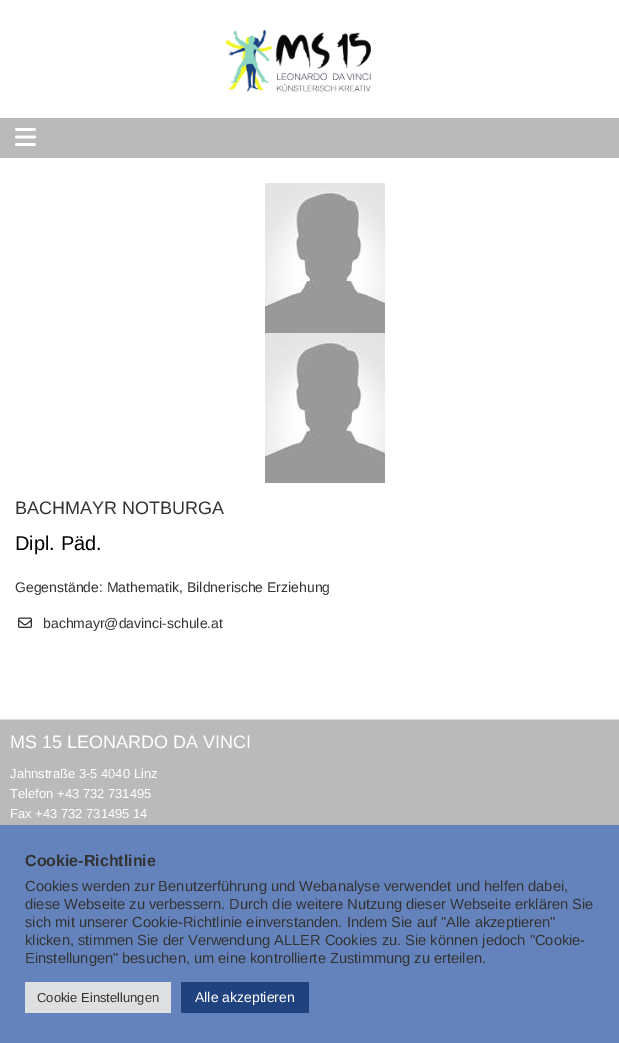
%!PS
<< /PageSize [619 1043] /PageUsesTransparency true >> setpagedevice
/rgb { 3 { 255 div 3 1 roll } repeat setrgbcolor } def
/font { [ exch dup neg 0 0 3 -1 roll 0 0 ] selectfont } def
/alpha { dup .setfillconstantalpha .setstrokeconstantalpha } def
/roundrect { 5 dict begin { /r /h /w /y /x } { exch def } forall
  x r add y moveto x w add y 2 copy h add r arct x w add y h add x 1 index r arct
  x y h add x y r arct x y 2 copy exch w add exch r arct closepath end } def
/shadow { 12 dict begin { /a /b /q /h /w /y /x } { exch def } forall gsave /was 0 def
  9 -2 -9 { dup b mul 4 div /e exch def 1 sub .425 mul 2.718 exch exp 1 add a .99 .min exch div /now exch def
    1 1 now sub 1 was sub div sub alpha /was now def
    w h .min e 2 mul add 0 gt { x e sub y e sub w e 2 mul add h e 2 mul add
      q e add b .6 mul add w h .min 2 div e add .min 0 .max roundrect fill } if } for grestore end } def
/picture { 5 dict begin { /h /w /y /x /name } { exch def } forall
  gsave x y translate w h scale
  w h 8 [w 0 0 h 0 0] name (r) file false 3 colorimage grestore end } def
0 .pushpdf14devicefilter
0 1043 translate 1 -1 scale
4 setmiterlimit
255 255 255 rgb
0 0 619 1043 rectfill
(img/1.rgb) 225 29 146 63 picture
186 186 186 rgb
0 118 619 40 rectfill
(img/2.rgb) 15 128 21 18 picture
(img/3.rgb) 265 183 120 150 picture
(img/3.rgb) 265 333 120 150 picture
(img/4.rgb) 18 617 14 11 picture
0 720 619 105 rectfill
221 221 221 rgb
0 719 619 1 rectfill
172 171 171 rgb
0 824 619 218 0 5 0.3 shadow
[
  [0 825 619 218 100 131 188]
  [25 982 146 31 222 223 224]
  [181 982 128 31 32 66 127]
] { aload pop rgb rectfill } forall
/LiberationSans-Regular 18 font
51 51 51 rgb
15 514 moveto (BACHMAYR NOTBURGA) show
/LiberationSans-Regular 20 font
0 0 0 rgb
15 550 moveto (Dipl. Päd.) show
/LiberationSans-Regular 14 font
51 51 51 rgb
15 592 moveto (Gegenstände: Mathematik, Bildnerische Erziehung) show
43 628 moveto (bachmayr@davinci-schule.at) show
/LiberationSans-Regular 18 font
255 255 255 rgb
10 748 moveto (MS 15 LEONARDO DA VINCI) show
/LiberationSans-Regular 13 font
[
  [(Jahnstraße 3-5 4040 Linz) 10 778]
  [(Telefon +43 732 731495) 10 798]
  [(Fax +43 732 731495 14) 10 818]
] { aload pop moveto show } forall
/LiberationSans-Bold 16 font
51 51 51 rgb
25 866 moveto (Cookie-Richtlinie) show
/LiberationSans-Regular 14.65 font
[
  [(Cookies werden zur Benutzerführung und Webanalyse verwendet und helfen dabei,) 25 891]
  [(diese Webseite zu verbessern. Durch die weitere Nutzung dieser Webseite erklären Sie) 25 909]
  [(sich mit unserer Cookie-Richtlinie einverstanden. Indem Sie auf "Alle akzeptieren") 25 927]
  [(klicken, stimmen Sie der Verwendung ALLER Cookies zu. Sie können jedoch "Cookie-) 25 945]
  [(Einstellungen" besuchen, um eine kontrollierte Zustimmung zu erteilen.) 25 963]
] { aload pop moveto show } forall
/LiberationSans-Regular 13 font
37 1002 moveto (Cookie Einstellungen) show
/LiberationSans-Regular 14 font
255 255 255 rgb
195 1002 moveto (Alle akzeptieren) show
.poppdf14devicefilter showpage
